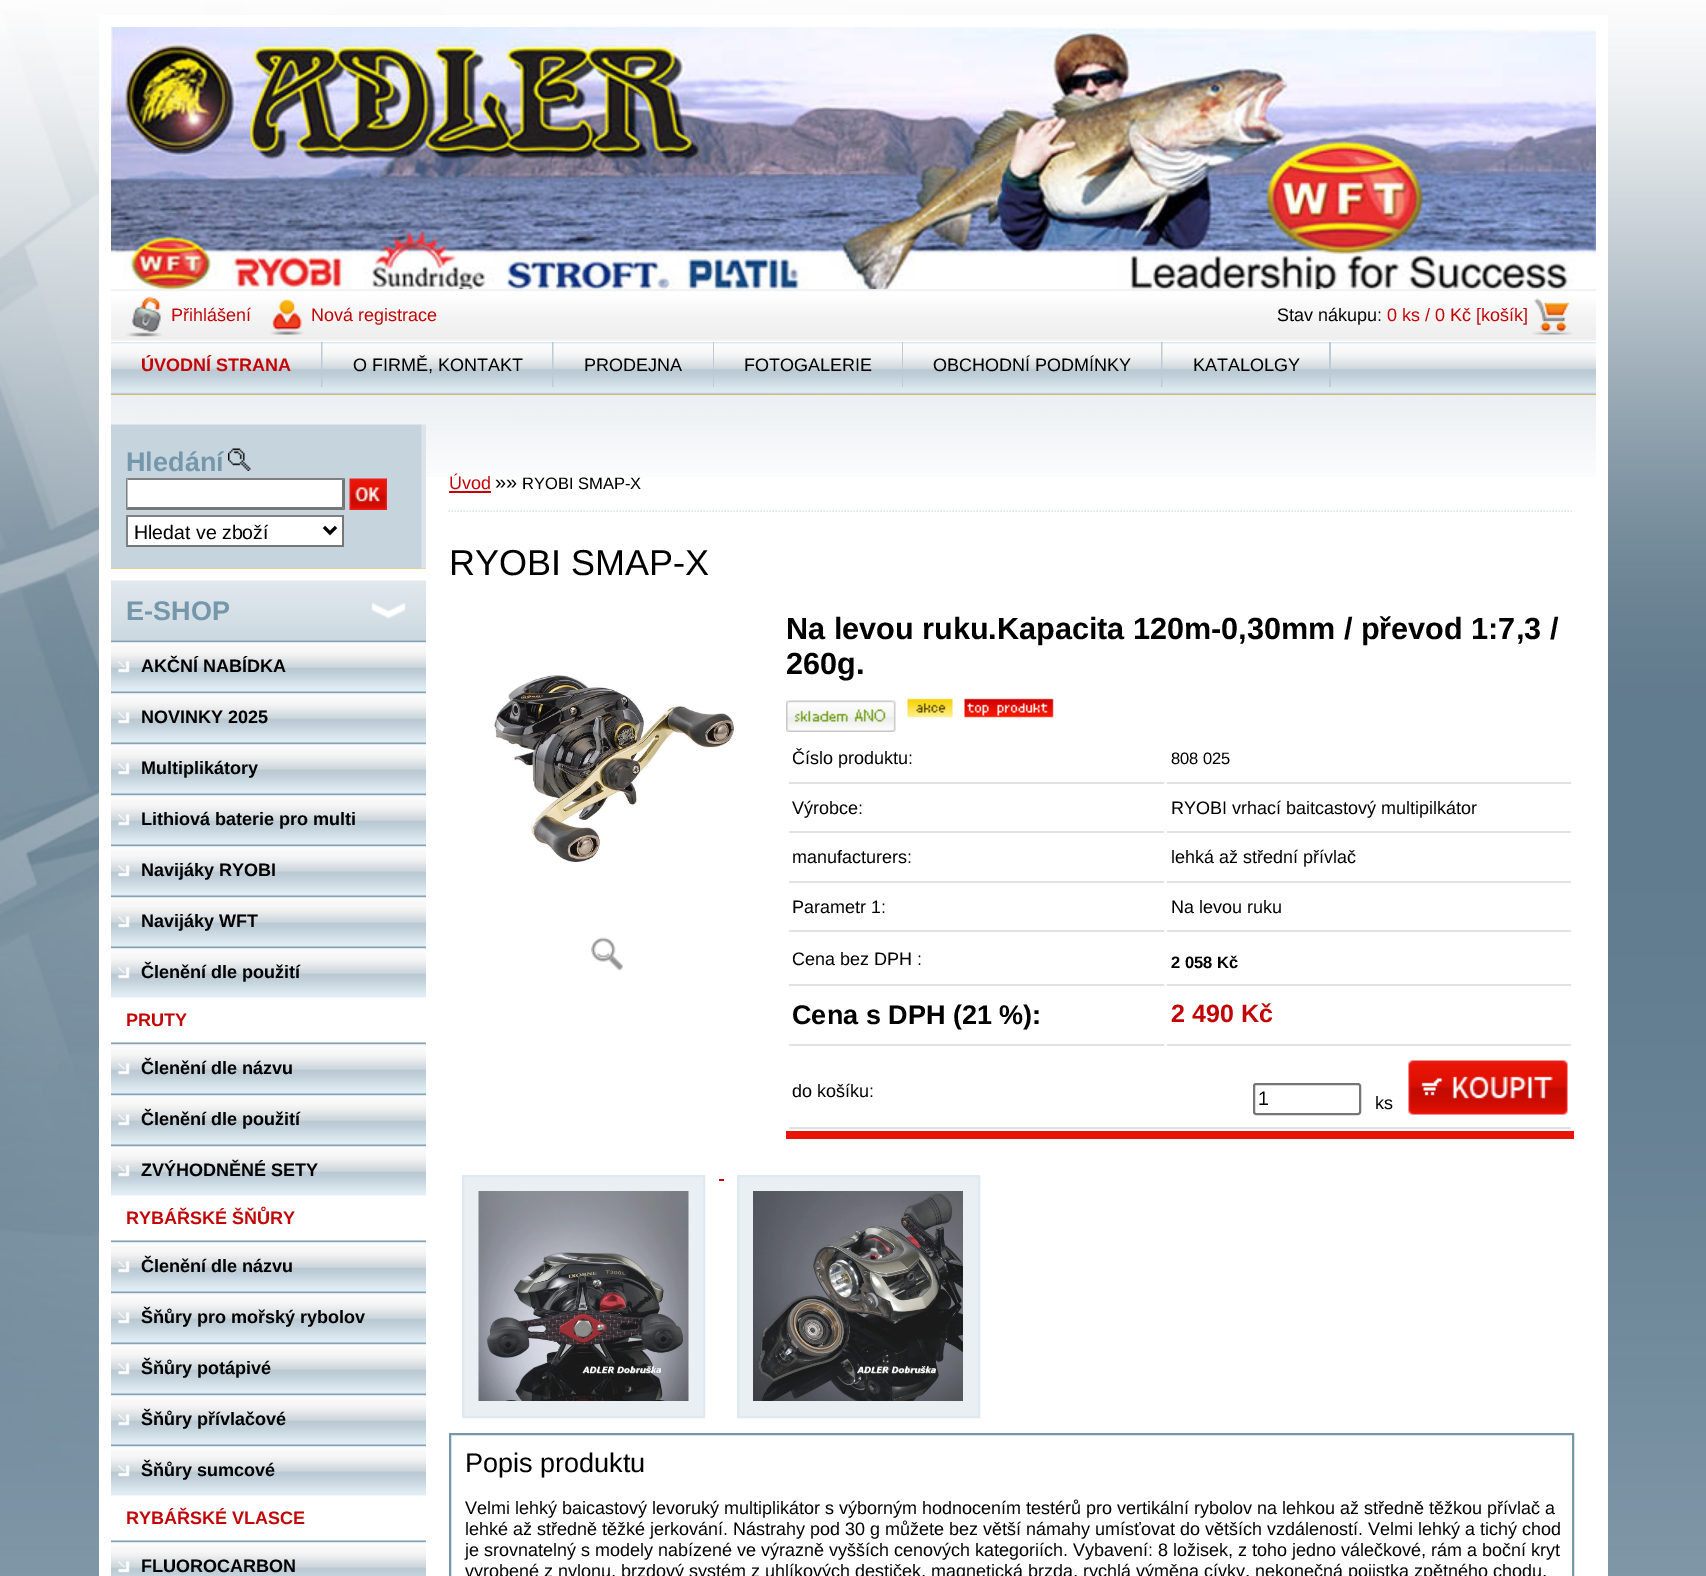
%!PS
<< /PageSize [1706 1576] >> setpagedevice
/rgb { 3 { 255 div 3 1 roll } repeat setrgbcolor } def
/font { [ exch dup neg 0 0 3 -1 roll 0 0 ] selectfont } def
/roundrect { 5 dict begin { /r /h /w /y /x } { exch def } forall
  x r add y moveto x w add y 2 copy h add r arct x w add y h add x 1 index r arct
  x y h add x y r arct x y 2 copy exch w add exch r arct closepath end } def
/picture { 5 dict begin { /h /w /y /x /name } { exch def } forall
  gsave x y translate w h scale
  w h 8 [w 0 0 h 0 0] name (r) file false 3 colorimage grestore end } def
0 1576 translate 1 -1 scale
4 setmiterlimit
255 255 255 rgb
0 0 1706 1576 rectfill
(img/1.rgb) 0 0 1706 1576 picture
99 15 1509 1561 rectfill
(img/2.rgb) 111 27 1485 263 picture
(img/10.rgb) 111 289 1485 188 picture
(img/3.rgb) 111 289 1485 53 picture
(img/4.rgb) 126 296 36 41 picture
(img/5.rgb) 270 299 34 36 picture
(img/6.rgb) 1532 298 41 37 picture
255 165 0 rgb
111 394 1485 1 rectfill
(img/7.rgb) 111 342 1485 53 picture
188 203 213 rgb
321 342 2 45 rectfill
(img/8.rgb) 322 342 1 45 picture
552 342 2 45 rectfill
(img/8.rgb) 553 342 1 45 picture
713 342 1 45 rectfill
(img/9.rgb) 714 342 1 45 picture
902 342 1 45 rectfill
(img/9.rgb) 903 342 1 45 picture
1161 342 2 45 rectfill
(img/8.rgb) 1162 342 1 45 picture
1329 342 2 45 rectfill
249 207 74 rgb
111 568 315 1 rectfill
(img/11.rgb) 111 424 315 145 picture
(img/12.rgb) 228 448 23 23 picture
255 255 255 rgb
126 479 219 31 rectfill
128 128 128 rgb
126 478 moveto 345 478 lineto 342 480 lineto 128 480 lineto closepath fill
118 118 118 rgb
345 478.5 moveto 345 510 lineto 342 507 lineto 342 480 lineto closepath fill
345 510 moveto 126 510 lineto 128 507 lineto 342 507 lineto closepath fill
128 128 128 rgb
126 510 moveto 126 478.5 lineto 127.5 480 lineto 127.5 507 lineto closepath fill
(img/13.rgb) 349 478 38 32 picture
[
  [128 517 214 28 255 255 255]
  [126 515 218 2 128 128 128]
  [342 515 2 31 118 118 118]
  [126 545 218 2 118 118 118]
  [126 515 2 31 128 128 128]
] { aload pop rgb rectfill } forall
0 0 0 rgb
3 setlinewidth
324 527 moveto 330 533 lineto 336 527 lineto stroke
(img/14.rgb) 111 580 315 61 picture
(img/15.rgb) 111 640 315 52 picture
(img/16.rgb) 111 691 315 52 picture
(img/16.rgb) 111 742 315 52 picture
(img/16.rgb) 111 793 315 52 picture
(img/16.rgb) 111 844 315 52 picture
(img/16.rgb) 111 895 315 52 picture
(img/16.rgb) 111 946 315 52 picture
(img/17.rgb) 111 1042 315 52 picture
(img/16.rgb) 111 1093 315 52 picture
(img/16.rgb) 111 1144 315 52 picture
(img/17.rgb) 111 1240 315 52 picture
(img/16.rgb) 111 1291 315 52 picture
(img/16.rgb) 111 1342 315 52 picture
(img/16.rgb) 111 1393 315 52 picture
(img/16.rgb) 111 1444 315 52 picture
(img/18.rgb) 111 1540 315 36 picture
219 231 239 rgb
1.5 setlinewidth
[1.5 1.5] 0 setdash
448.5 511 moveto 1573.5 511 lineto stroke
195 4 5 rgb
449 491 42 2 rectfill
(img/19.rgb) 494 675 241 188 picture
(img/20.rgb) 591 937 32 34 picture
(img/21.rgb) 786 700 110 32 picture
(img/22.rgb) 907 698 46 20 picture
(img/23.rgb) 964 698 90 20 picture
[
  [786 1131 788 8 234 20 6]
  [789 782 375 2 226 226 226]
  [1167 782 404 2 226 226 226]
  [789 831 375 2 226 226 226]
  [1167 831 404 2 226 226 226]
  [789 881 375 2 226 226 226]
  [1167 881 404 2 226 226 226]
  [789 930 375 2 226 226 226]
  [1167 930 404 2 226 226 226]
  [789 984 375 2 226 226 226]
  [1167 984 404 2 226 226 226]
  [789 1044 375 2 226 226 226]
  [1167 1044 404 2 226 226 226]
  [789 1127 782 2 226 226 226]
] { aload pop rgb rectfill } forall
118 118 118 rgb
2 setlinewidth
[] 0 setdash
1254 1084 106 30 2 roundrect stroke
(img/24.rgb) 1408 1060 160 55 picture
233 239 242 rgb
463 1176 moveto 704 1176 lineto 704 1417 lineto 463 1417 lineto closepath gsave fill grestore
223 233 241 rgb
stroke
195 4 5 rgb
719 1179 5 2 rectfill
233 239 242 rgb
738 1176 moveto 979 1176 lineto 979 1417 lineto 738 1417 lineto closepath gsave fill grestore
223 233 241 rgb
stroke
(img/25.rgb) 478 1191 211 210 picture
(img/26.rgb) 753 1191 210 210 picture
116 151 172 rgb
450 1434 1123 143 rectstroke
/LiberationSans-Regular 18 font
195 4 5 rgb
171 321 moveto (Přihlášení) show
311 321 moveto (Nová registrace) show
0 0 0 rgb
1277 321 moveto (Stav nákupu:) show
195 4 5 rgb
1387 321 moveto (0 ks / 0 Kč [košík]) show
/LiberationSans-Bold 18 font
141 371 moveto (ÚVODNÍ STRANA) show
/LiberationSans-Regular 18 font
0 0 0 rgb
[
  [(O FIRMĚ, KONTAKT) 353 371]
  [(PRODEJNA) 584 371]
  [(FOTOGALERIE) 744 371]
  [(OBCHODNÍ PODMÍNKY) 933 371]
  [(KATALOLGY) 1193 371]
] { aload pop moveto show } forall
/LiberationSans-Bold 27 font
116 151 172 rgb
126 471 moveto (Hledání) show
/LiberationSans-Regular 19.5 font
0 0 0 rgb
134 539 moveto (Hledat ve zboží) show
/LiberationSans-Bold 27 font
116 151 172 rgb
126 620 moveto (E-SHOP) show
/LiberationSans-Bold 18 font
0 0 0 rgb
[
  [(AKČNÍ NABÍDKA) 141 672]
  [(NOVINKY 2025) 141 723]
  [(Multiplikátory) 141 774]
  [(Lithiová baterie pro multi) 141 825]
  [(Navijáky RYOBI) 141 876]
  [(Navijáky WFT) 141 927]
  [(Členění dle použití) 141 978]
] { aload pop moveto show } forall
195 4 5 rgb
126 1026 moveto (PRUTY) show
0 0 0 rgb
[
  [(Členění dle názvu) 141 1074]
  [(Členění dle použití) 141 1125]
  [(ZVÝHODNĚNÉ SETY) 141 1176]
] { aload pop moveto show } forall
195 4 5 rgb
126 1224 moveto (RYBÁŘSKÉ ŠŇŮRY) show
0 0 0 rgb
[
  [(Členění dle názvu) 141 1272]
  [(Šňůry pro mořský rybolov) 141 1323]
  [(Šňůry potápivé) 141 1374]
  [(Šňůry přívlačové) 141 1425]
  [(Šňůry sumcové) 141 1476]
] { aload pop moveto show } forall
195 4 5 rgb
126 1524 moveto (RYBÁŘSKÉ VLASCE) show
0 0 0 rgb
141 1572 moveto (FLUOROCARBON) show
/LiberationSans-Regular 18 font
195 4 5 rgb
449 489 moveto (Úvod) show
/LiberationSans-Regular 20 font
0 0 0 rgb
495 489 moveto (»») show
/LiberationSans-Regular 16.5 font
522 489 moveto (RYOBI SMAP-X) show
/LiberationSans-Regular 36 font
449 575 moveto (RYOBI SMAP-X) show
/LiberationSans-Bold 30.6 font
786 639 moveto (Na levou ruku.Kapacita 120m-0,30mm / převod 1:7,3 /) show
786 674 moveto (260g.) show
/LiberationSans-Regular 18 font
792 764 moveto (Číslo produktu:) show
/LiberationSans-Regular 16.5 font
1171 764 moveto (808 025) show
/LiberationSans-Regular 18 font
[
  [(Výrobce:) 792 814]
  [(RYOBI vrhací baitcastový multipilkátor) 1171 814]
  [(manufacturers:) 792 863]
  [(lehká až střední přívlač) 1171 863]
  [(Parametr 1:) 792 913]
  [(Na levou ruku) 1171 913]
  [(Cena bez DPH :) 792 965]
] { aload pop moveto show } forall
/LiberationSans-Bold 16.5 font
1171 968 moveto (2 058 Kč) show
/LiberationSans-Bold 27 font
792 1024 moveto (Cena s DPH \(21 %\):) show
/LiberationSans-Bold 25 font
195 4 5 rgb
1171 1022 moveto (2 490 Kč) show
/LiberationSans-Regular 18 font
0 0 0 rgb
792 1097 moveto (do košíku:) show
/LiberationSans-Regular 19.5 font
1258 1105 moveto (1) show
/LiberationSans-Regular 18 font
1375 1109 moveto (ks) show
/LiberationSans-Regular 27 font
465 1472 moveto (Popis produktu) show
/LiberationSans-Regular 18 font
[
  [(Velmi lehký baicastový levoruký multiplikátor s výborným hodnocením testérů pro vertikální rybolov na lehkou až středně těžkou přívlač a) 465 1514]
  [(lehké až středně těžké jerkování. Nástrahy pod 30 g můžete bez větší námahy umísťovat do větších vzdáleností. Velmi lehký a tichý chod) 465 1535]
  [(je srovnatelný s modely nabízené ve výrazně vyšších cenových kategoriích. Vybavení: 8 ložisek, z toho jedno válečkové, rám a boční kryt) 465 1556]
  [(vyrobené z nylonu, brzdový systém z uhlíkových destiček, magnetická brzda, rychlá výměna cívky, nekonečná pojistka zpětného chodu,) 465 1577]
] { aload pop moveto show } forall
showpage
